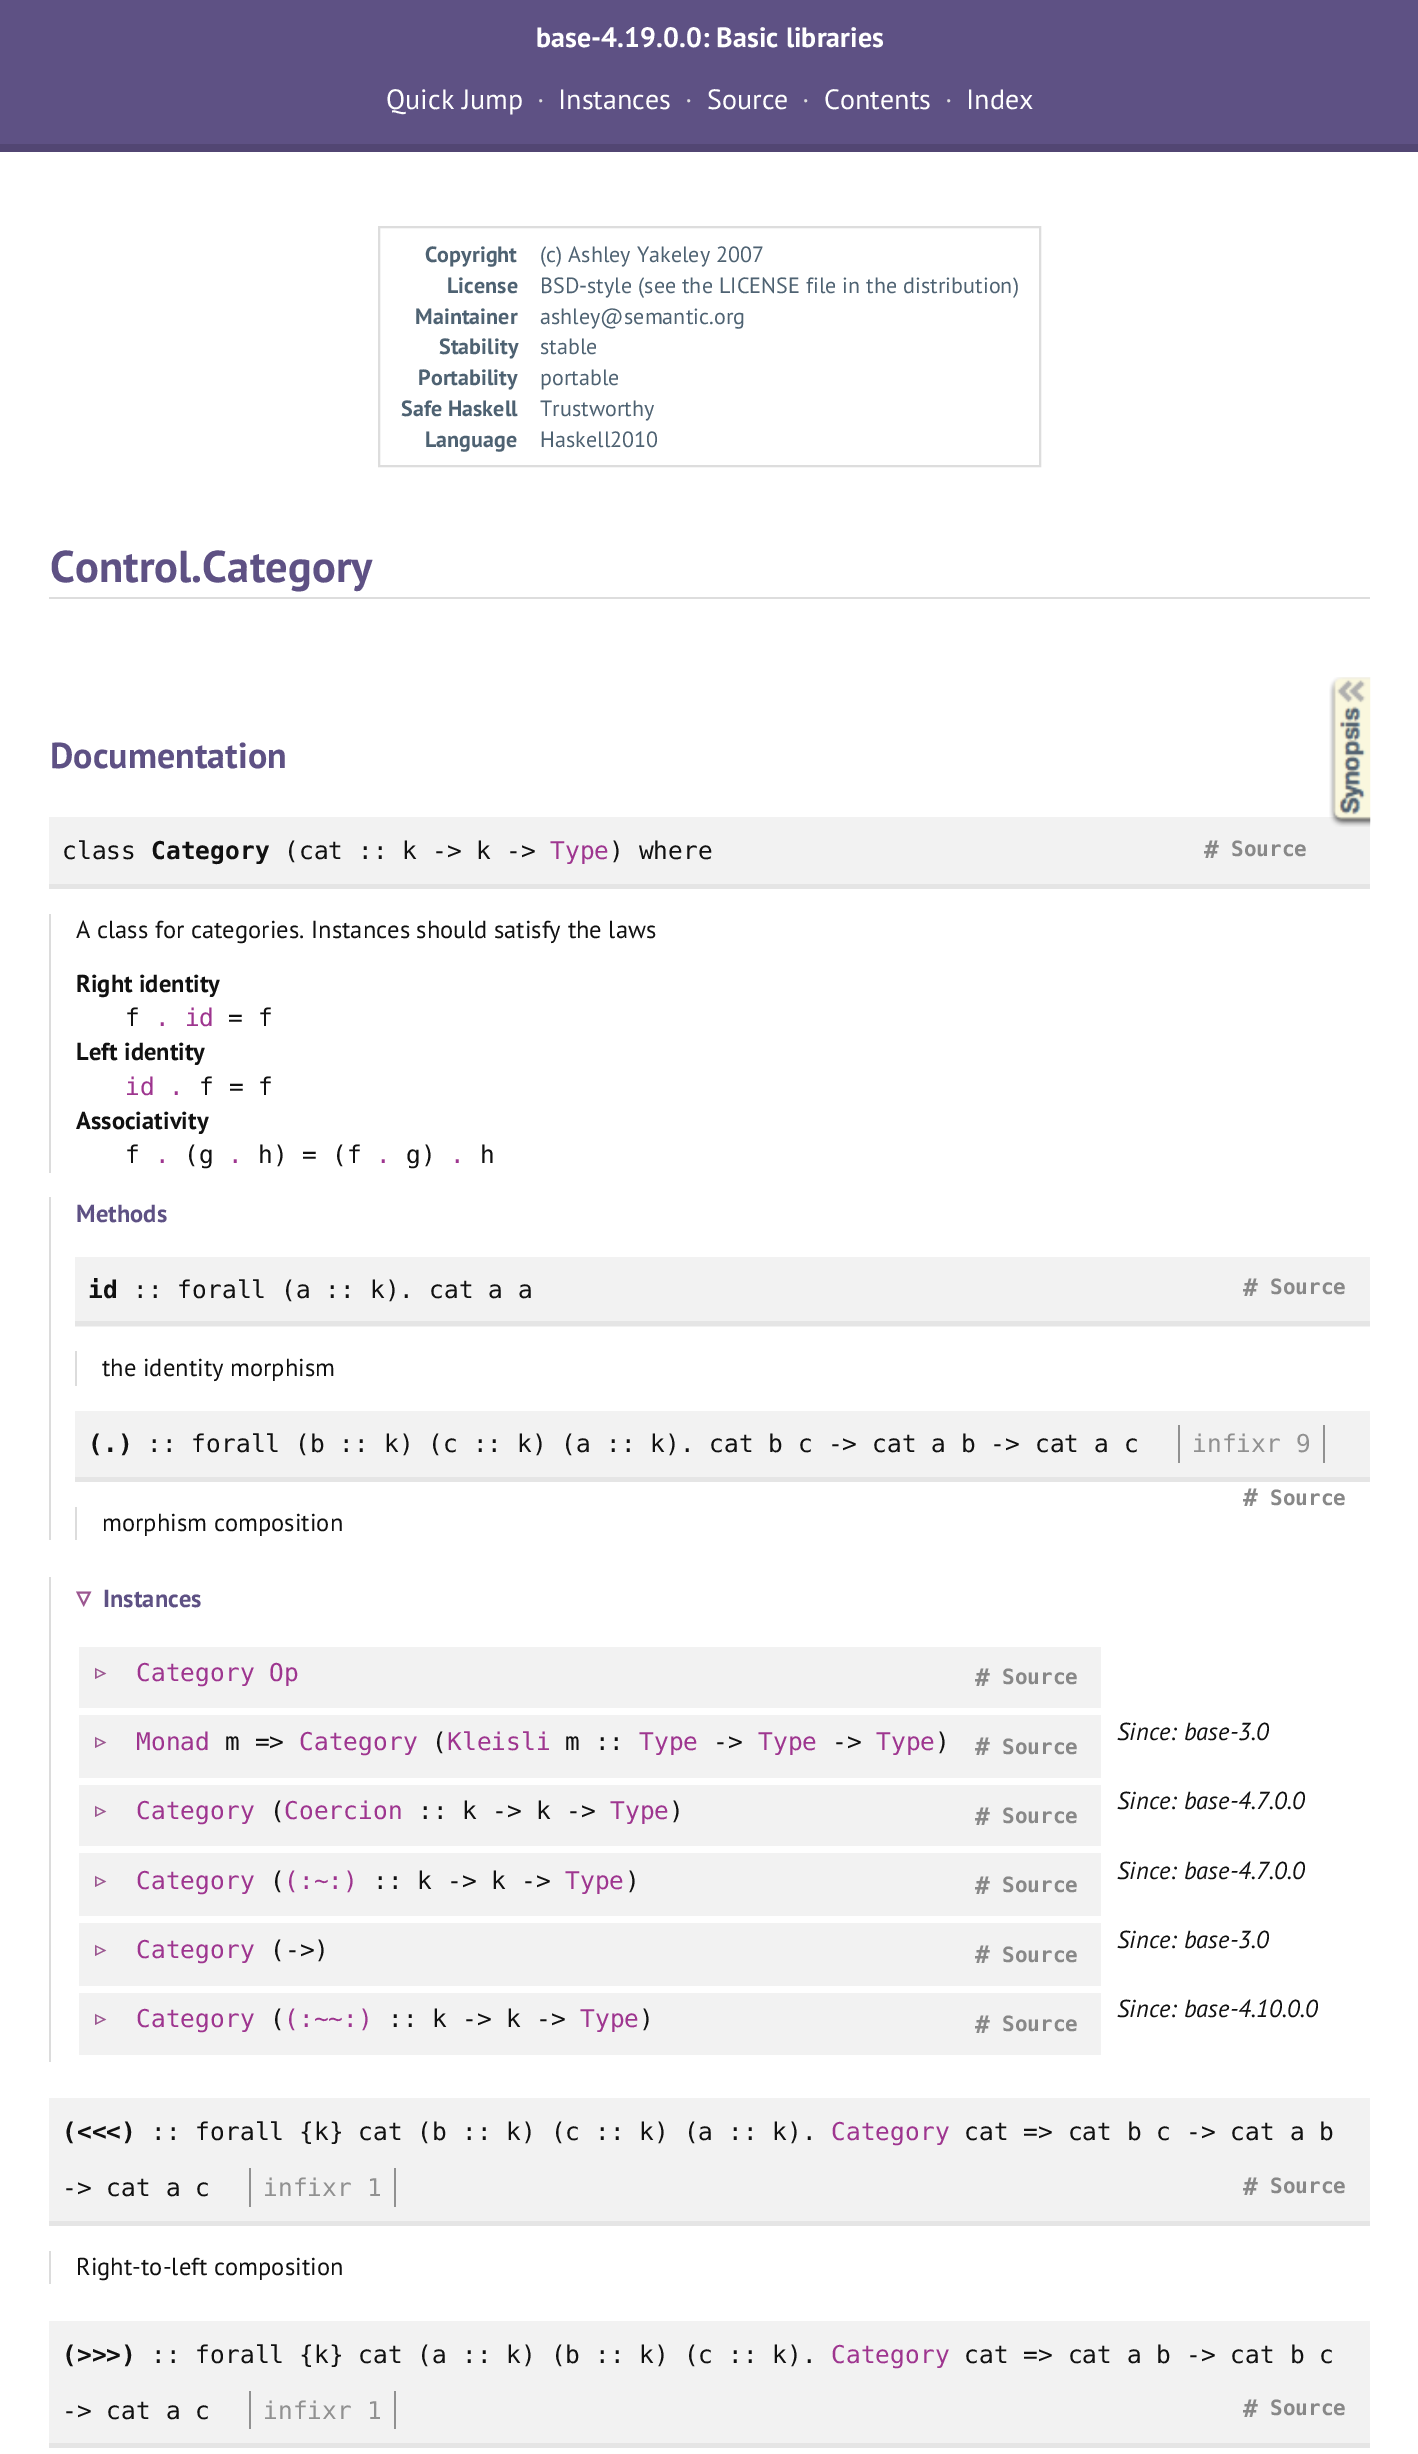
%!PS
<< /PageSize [1418 2454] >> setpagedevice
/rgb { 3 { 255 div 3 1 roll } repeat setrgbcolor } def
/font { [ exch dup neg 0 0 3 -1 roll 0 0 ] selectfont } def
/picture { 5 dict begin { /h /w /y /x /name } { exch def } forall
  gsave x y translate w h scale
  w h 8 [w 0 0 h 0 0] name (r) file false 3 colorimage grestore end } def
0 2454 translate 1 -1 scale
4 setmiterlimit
255 255 255 rgb
0 0 1418 2454 rectfill
94 81 132 rgb
0 0 1418 144 rectfill
82 70 115 rgb
0 144 1418 8 rectfill
221 221 221 rgb
2 setlinewidth
379 227 661 239 rectstroke
[
  [49 597 1321 2 221 221 221]
  [49 817 1321 67 242 242 242]
  [49 884 1321 5 229 229 229]
  [49 914 2 259 220 220 220]
  [49 1197 2 343 220 220 220]
  [75 1257 1295 70 242 242 242]
  [75 1321 1295 5 229 229 229]
  [75 1351 2 35 220 220 220]
  [75 1411 1295 66 242 242 242]
  [75 1477 1295 5 229 229 229]
  [1178 1425 2 38 145 145 145]
  [1323 1425 2 38 145 145 145]
  [75 1507 2 33 220 220 220]
  [49 1577 2 485 220 220 220]
  [79 1647 1022 61 242 242 242]
  [79 1715 1022 63 242 242 242]
  [79 1785 1022 61 242 242 242]
  [79 1853 1022 63 242 242 242]
  [79 1923 1022 63 242 242 242]
  [79 1993 1022 62 242 242 242]
  [49 2098 1321 123 242 242 242]
  [49 2221 1321 5 229 229 229]
  [249 2168 2 39 145 145 145]
  [394 2168 2 39 145 145 145]
  [49 2251 2 33 220 220 220]
  [49 2321 1321 122 242 242 242]
  [49 2443 1321 5 229 229 229]
  [249 2391 2 38 145 145 145]
  [394 2391 2 38 145 145 145]
] { aload pop rgb rectfill } forall
(img/1.rgb) 1329 677 42 150 picture
/PTSans-Bold 28 font
255 255 255 rgb
536 47 moveto 0.05 0 (base-4.19.0.0: Basic libraries) ashow
/PTSans-Regular 28 font
386 109 moveto 0.05 0 (Quick Jump) ashow
221 221 221 rgb
537 109 moveto 0.05 0 (·) ashow
255 255 255 rgb
558 109 moveto 0.05 0 (Instances) ashow
221 221 221 rgb
685 109 moveto 0.05 0 (·) ashow
255 255 255 rgb
707 109 moveto 0.05 0 (Source) ashow
221 221 221 rgb
802 109 moveto 0.05 0 (·) ashow
255 255 255 rgb
824 109 moveto 0.05 0 (Contents) ashow
221 221 221 rgb
945 109 moveto 0.05 0 (·) ashow
255 255 255 rgb
966 109 moveto 0.05 0 (Index) ashow
/PTSans-Bold 22.05 font
78 98 114 rgb
425 262 moveto 0.05 0 (Copyright) ashow
/PTSans-Regular 22.05 font
540 262 moveto 0.05 0 (\(c\) Ashley Yakeley 2007) ashow
/PTSans-Bold 22.05 font
447 293 moveto 0.05 0 (License) ashow
/PTSans-Regular 22.05 font
540 293 moveto 0.05 0 (BSD-style \(see the LICENSE file in the distribution\)) ashow
/PTSans-Bold 22.05 font
415 324 moveto 0.05 0 (Maintainer) ashow
/PTSans-Regular 22.05 font
540 324 moveto 0.05 0 (ashley@semantic.org) ashow
/PTSans-Bold 22.05 font
439 354 moveto 0.05 0 (Stability) ashow
/PTSans-Regular 22.05 font
540 354 moveto 0.05 0 (stable) ashow
/PTSans-Bold 22.05 font
418 385 moveto 0.05 0 (Portability) ashow
/PTSans-Regular 22.05 font
540 385 moveto 0.05 0 (portable) ashow
/PTSans-Bold 22.05 font
401 416 moveto 0.05 0 (Safe Haskell) ashow
/PTSans-Regular 22.05 font
540 416 moveto 0.05 0 (Trustworthy) ashow
/PTSans-Bold 22.05 font
425 447 moveto 0.05 0 (Language) ashow
/PTSans-Regular 22.05 font
540 447 moveto 0.05 0 (Haskell2010) ashow
/PTSans-Bold 44.5 font
94 81 132 rgb
50 582 moveto 0.05 0 (Control.Category) ashow
/PTSans-Bold 36 font
50 768 moveto 0.05 0 (Documentation) ashow
/DejaVuSansMono-Regular 24.5 font
17 17 17 rgb
62 859 moveto 0.05 0 (class) ashow
/DejaVuSansMono-Bold 24.5 font
151 859 moveto 0.05 0 (Category) ashow
/DejaVuSansMono-Regular 24.5 font
284 859 moveto 0.05 0 (\(cat :: k -> k ->) ashow
158 53 143 rgb
550 859 moveto 0.05 0 (Type) ashow
17 17 17 rgb
609 859 moveto 0.05 0 (\) where) ashow
/DejaVuSansMono-Bold 24.5 font
136 136 136 rgb
1204 858 moveto 0.05 0 (#) ashow
/DejaVuSansMono-Bold 21 font
1231 856 moveto 0.05 0 (Source) ashow
/PTSans-Regular 24.5 font
17 17 17 rgb
76 938 moveto 0.05 0 (A class for categories. Instances should satisfy the laws) ashow
/PTSans-Bold 24.5 font
76 992 moveto 0.05 0 (Right identity) ashow
/DejaVuSansMono-Regular 24.5 font
125 1026 moveto 0.05 0 (f) ashow
158 53 143 rgb
155 1026 moveto 0.05 0 (. id) ashow
17 17 17 rgb
228 1026 moveto 0.05 0 (= f) ashow
/PTSans-Bold 24.5 font
76 1060 moveto 0.05 0 (Left identity) ashow
/DejaVuSansMono-Regular 24.5 font
158 53 143 rgb
125 1095 moveto 0.05 0 (id .) ashow
17 17 17 rgb
199 1095 moveto 0.05 0 (f = f) ashow
/PTSans-Bold 24.5 font
76 1129 moveto 0.05 0 (Associativity) ashow
/DejaVuSansMono-Regular 24.5 font
125 1163 moveto 0.05 0 (f) ashow
158 53 143 rgb
155 1163 moveto 0.05 0 (.) ashow
17 17 17 rgb
184 1163 moveto 0.05 0 (\(g) ashow
158 53 143 rgb
228 1163 moveto 0.05 0 (.) ashow
17 17 17 rgb
258 1163 moveto 0.05 0 (h\) = \(f) ashow
158 53 143 rgb
376 1163 moveto 0.05 0 (.) ashow
17 17 17 rgb
406 1163 moveto 0.05 0 (g\)) ashow
158 53 143 rgb
450 1163 moveto 0.05 0 (.) ashow
17 17 17 rgb
480 1163 moveto 0.05 0 (h) ashow
/PTSans-Bold 24.5 font
94 81 132 rgb
76 1222 moveto 0.05 0 (Methods) ashow
/DejaVuSansMono-Bold 24.5 font
17 17 17 rgb
88 1298 moveto 0.05 0 (id) ashow
/DejaVuSansMono-Regular 24.5 font
133 1298 moveto 0.05 0 (:: forall \(a :: k\). cat a a) ashow
/DejaVuSansMono-Bold 24.5 font
136 136 136 rgb
1243 1296 moveto 0.05 0 (#) ashow
/DejaVuSansMono-Bold 21 font
1270 1294 moveto 0.05 0 (Source) ashow
/PTSans-Regular 24.5 font
17 17 17 rgb
102 1376 moveto 0.05 0 (the identity morphism) ashow
/DejaVuSansMono-Bold 24.5 font
88 1452 moveto 0.05 0 (\(.\)) ashow
/DejaVuSansMono-Regular 24.5 font
147 1452 moveto 0.05 0 (:: forall \(b :: k\) \(c :: k\) \(a :: k\). cat b c -> cat a b -> cat a c) ashow
145 145 145 rgb
1192 1452 moveto 0.05 0 (infixr 9) ashow
/DejaVuSansMono-Bold 24.5 font
136 136 136 rgb
1243 1506 moveto 0.05 0 (#) ashow
/DejaVuSansMono-Bold 21 font
1270 1505 moveto 0.05 0 (Source) ashow
/PTSans-Regular 24.5 font
17 17 17 rgb
102 1531 moveto 0.05 0 (morphism composition) ashow
/DejaVuSans-Bold 29 font
156 87 145 rgb
76 1607 moveto 0.05 0 (▿) ashow
/PTSans-Bold 24.5 font
94 81 132 rgb
103 1607 moveto 0.05 0 (Instances) ashow
/DejaVuSansMono-Regular 29 font
156 87 145 rgb
92 1681 moveto 0.05 0 (▹) ashow
/DejaVuSansMono-Regular 24.5 font
158 53 143 rgb
136 1681 moveto 0.05 0 (Category Op) ashow
/DejaVuSansMono-Bold 24.5 font
136 136 136 rgb
975 1686 moveto 0.05 0 (#) ashow
/DejaVuSansMono-Bold 21 font
1002 1684 moveto 0.05 0 (Source) ashow
/DejaVuSansMono-Regular 29 font
156 87 145 rgb
92 1750 moveto 0.05 0 (▹) ashow
/DejaVuSansMono-Regular 24.5 font
158 53 143 rgb
136 1750 moveto 0.05 0 (Monad) ashow
17 17 17 rgb
225 1750 moveto 0.05 0 (m =>) ashow
158 53 143 rgb
299 1750 moveto 0.05 0 (Category) ashow
17 17 17 rgb
432 1750 moveto 0.05 0 (\() ashow
158 53 143 rgb
447 1750 moveto 0.05 0 (Kleisli) ashow
17 17 17 rgb
565 1750 moveto 0.05 0 (m ::) ashow
158 53 143 rgb
639 1750 moveto 0.05 0 (Type) ashow
17 17 17 rgb
713 1750 moveto 0.05 0 (->) ashow
158 53 143 rgb
758 1750 moveto 0.05 0 (Type) ashow
17 17 17 rgb
832 1750 moveto 0.05 0 (->) ashow
158 53 143 rgb
876 1750 moveto 0.05 0 (Type) ashow
17 17 17 rgb
935 1750 moveto 0.05 0 (\)) ashow
/DejaVuSansMono-Bold 24.5 font
136 136 136 rgb
975 1755 moveto 0.05 0 (#) ashow
/DejaVuSansMono-Bold 21 font
1002 1754 moveto 0.05 0 (Source) ashow
/PTSans-Italic 24.5 font
17 17 17 rgb
1117 1740 moveto 0.05 0 (Since: base-3.0) ashow
/DejaVuSansMono-Regular 29 font
156 87 145 rgb
92 1819 moveto 0.05 0 (▹) ashow
/DejaVuSansMono-Regular 24.5 font
158 53 143 rgb
136 1819 moveto 0.05 0 (Category) ashow
17 17 17 rgb
270 1819 moveto 0.05 0 (\() ashow
158 53 143 rgb
284 1819 moveto 0.05 0 (Coercion) ashow
17 17 17 rgb
418 1819 moveto 0.05 0 (:: k -> k ->) ashow
158 53 143 rgb
610 1819 moveto 0.05 0 (Type) ashow
17 17 17 rgb
669 1819 moveto 0.05 0 (\)) ashow
/DejaVuSansMono-Bold 24.5 font
136 136 136 rgb
975 1825 moveto 0.05 0 (#) ashow
/DejaVuSansMono-Bold 21 font
1002 1823 moveto 0.05 0 (Source) ashow
/PTSans-Italic 24.5 font
17 17 17 rgb
1117 1809 moveto 0.05 0 (Since: base-4.7.0.0) ashow
/DejaVuSansMono-Regular 29 font
156 87 145 rgb
92 1889 moveto 0.05 0 (▹) ashow
/DejaVuSansMono-Regular 24.5 font
158 53 143 rgb
136 1889 moveto 0.05 0 (Category) ashow
17 17 17 rgb
270 1889 moveto 0.05 0 (\() ashow
158 53 143 rgb
284 1889 moveto 0.05 0 (\(:~:\)) ashow
17 17 17 rgb
373 1889 moveto 0.05 0 (:: k -> k ->) ashow
158 53 143 rgb
565 1889 moveto 0.05 0 (Type) ashow
17 17 17 rgb
625 1889 moveto 0.05 0 (\)) ashow
/DejaVuSansMono-Bold 24.5 font
136 136 136 rgb
975 1894 moveto 0.05 0 (#) ashow
/DejaVuSansMono-Bold 21 font
1002 1892 moveto 0.05 0 (Source) ashow
/PTSans-Italic 24.5 font
17 17 17 rgb
1117 1879 moveto 0.05 0 (Since: base-4.7.0.0) ashow
/DejaVuSansMono-Regular 29 font
156 87 145 rgb
92 1958 moveto 0.05 0 (▹) ashow
/DejaVuSansMono-Regular 24.5 font
158 53 143 rgb
136 1958 moveto 0.05 0 (Category) ashow
17 17 17 rgb
270 1958 moveto 0.05 0 (\(->\)) ashow
/DejaVuSansMono-Bold 24.5 font
136 136 136 rgb
975 1963 moveto 0.05 0 (#) ashow
/DejaVuSansMono-Bold 21 font
1002 1962 moveto 0.05 0 (Source) ashow
/PTSans-Italic 24.5 font
17 17 17 rgb
1117 1948 moveto 0.05 0 (Since: base-3.0) ashow
/DejaVuSansMono-Regular 29 font
156 87 145 rgb
92 2027 moveto 0.05 0 (▹) ashow
/DejaVuSansMono-Regular 24.5 font
158 53 143 rgb
136 2027 moveto 0.05 0 (Category) ashow
17 17 17 rgb
270 2027 moveto 0.05 0 (\() ashow
158 53 143 rgb
284 2027 moveto 0.05 0 (\(:~~:\)) ashow
17 17 17 rgb
388 2027 moveto 0.05 0 (:: k -> k ->) ashow
158 53 143 rgb
580 2027 moveto 0.05 0 (Type) ashow
17 17 17 rgb
639 2027 moveto 0.05 0 (\)) ashow
/DejaVuSansMono-Bold 24.5 font
136 136 136 rgb
975 2033 moveto 0.05 0 (#) ashow
/DejaVuSansMono-Bold 21 font
1002 2031 moveto 0.05 0 (Source) ashow
/PTSans-Italic 24.5 font
17 17 17 rgb
1117 2017 moveto 0.05 0 (Since: base-4.10.0.0) ashow
/DejaVuSansMono-Bold 24.5 font
62 2140 moveto 0.05 0 (\(<<<\)) ashow
/DejaVuSansMono-Regular 24.5 font
151 2140 moveto 0.05 0 (:: forall {k} cat \(b :: k\) \(c :: k\) \(a :: k\).) ashow
158 53 143 rgb
831 2140 moveto 0.05 0 (Category) ashow
17 17 17 rgb
964 2140 moveto 0.05 0 (cat => cat b c -> cat a b) ashow
62 2196 moveto 0.05 0 (-> cat a c) ashow
145 145 145 rgb
263 2196 moveto 0.05 0 (infixr 1) ashow
/DejaVuSansMono-Bold 24.5 font
136 136 136 rgb
1243 2195 moveto 0.05 0 (#) ashow
/DejaVuSansMono-Bold 21 font
1270 2193 moveto 0.05 0 (Source) ashow
/PTSans-Regular 24.5 font
17 17 17 rgb
76 2275 moveto 0.05 0 (Right-to-left composition) ashow
/DejaVuSansMono-Bold 24.5 font
62 2363 moveto 0.05 0 (\(>>>\)) ashow
/DejaVuSansMono-Regular 24.5 font
151 2363 moveto 0.05 0 (:: forall {k} cat \(a :: k\) \(b :: k\) \(c :: k\).) ashow
158 53 143 rgb
831 2363 moveto 0.05 0 (Category) ashow
17 17 17 rgb
964 2363 moveto 0.05 0 (cat => cat a b -> cat b c) ashow
62 2419 moveto 0.05 0 (-> cat a c) ashow
145 145 145 rgb
263 2419 moveto 0.05 0 (infixr 1) ashow
/DejaVuSansMono-Bold 24.5 font
136 136 136 rgb
1243 2417 moveto 0.05 0 (#) ashow
/DejaVuSansMono-Bold 21 font
1270 2415 moveto 0.05 0 (Source) ashow
showpage
